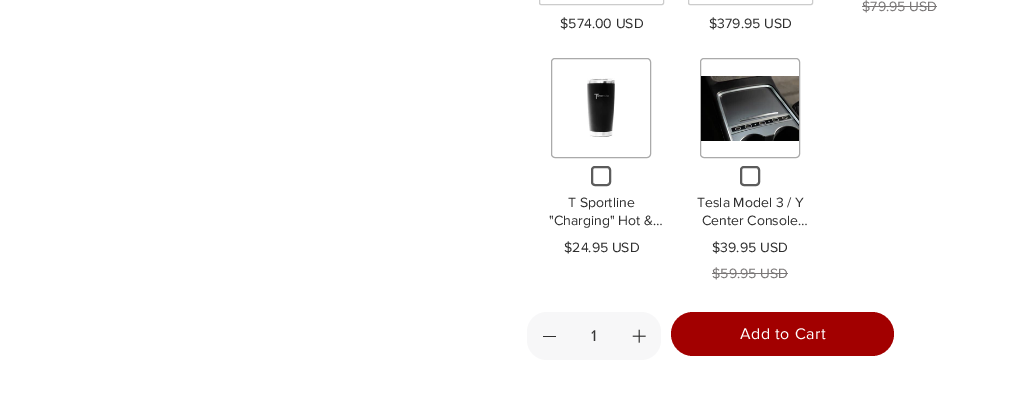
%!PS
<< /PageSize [1034 413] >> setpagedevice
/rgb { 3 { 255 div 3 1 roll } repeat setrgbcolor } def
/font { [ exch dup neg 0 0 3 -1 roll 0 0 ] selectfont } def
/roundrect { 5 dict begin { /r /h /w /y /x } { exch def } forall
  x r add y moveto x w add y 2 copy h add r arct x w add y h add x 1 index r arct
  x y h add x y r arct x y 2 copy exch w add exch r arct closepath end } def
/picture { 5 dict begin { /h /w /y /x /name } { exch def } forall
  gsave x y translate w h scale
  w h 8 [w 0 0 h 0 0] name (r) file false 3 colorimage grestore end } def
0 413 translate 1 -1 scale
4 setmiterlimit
255 255 255 rgb
0 0 1034 413 rectfill
121 118 118 rgb
862 6 75 1 rectfill
204 204 204 rgb
539.5 -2.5 124 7 1.5 roundrect stroke
688.5 -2.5 124 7 1.5 roundrect stroke
170 170 170 rgb
551.5 58.5 99 99 3.5 roundrect stroke
(img/1.rgb) 587 78 28 59 picture
92 92 92 rgb
2 setlinewidth
592 167 18 18 3 roundrect stroke
170 170 170 rgb
1 setlinewidth
700.5 58.5 99 99 3.5 roundrect stroke
(img/2.rgb) 701 76 98 65 picture
92 92 92 rgb
2 setlinewidth
741 167 18 18 3 roundrect stroke
121 118 118 rgb
712 273 76 1 rectfill
247 247 248 rgb
527 312 134 48 20 roundrect fill
47 47 47 rgb
543 336 13 1 rectfill
(img/3.rgb) 632 329 14 14 picture
162 0 0 rgb
671 312 223 44 22 roundrect fill
/ProximaNova-Regular 14 font
121 118 118 rgb
862 11 moveto ($79.95 USD) show
47 47 47 rgb
[
  [($574.00 USD) 560 28]
  [($379.95 USD) 709 28]
  [(T Sportline) 568 207]
  [("Charging" Hot &…) 549 225]
  [($24.95 USD) 564 252]
  [(Tesla Model 3 / Y) 697 207]
  [(Center Console…) 702 225]
  [($39.95 USD) 712 252]
] { aload pop moveto show } forall
121 118 118 rgb
712 278 moveto ($59.95 USD) show
/ProximaNova-Regular 16 font
54 54 54 rgb
591 341 moveto (1) show
255 255 255 rgb
740 339 moveto 0.5 0 (Add to Cart) ashow
showpage
